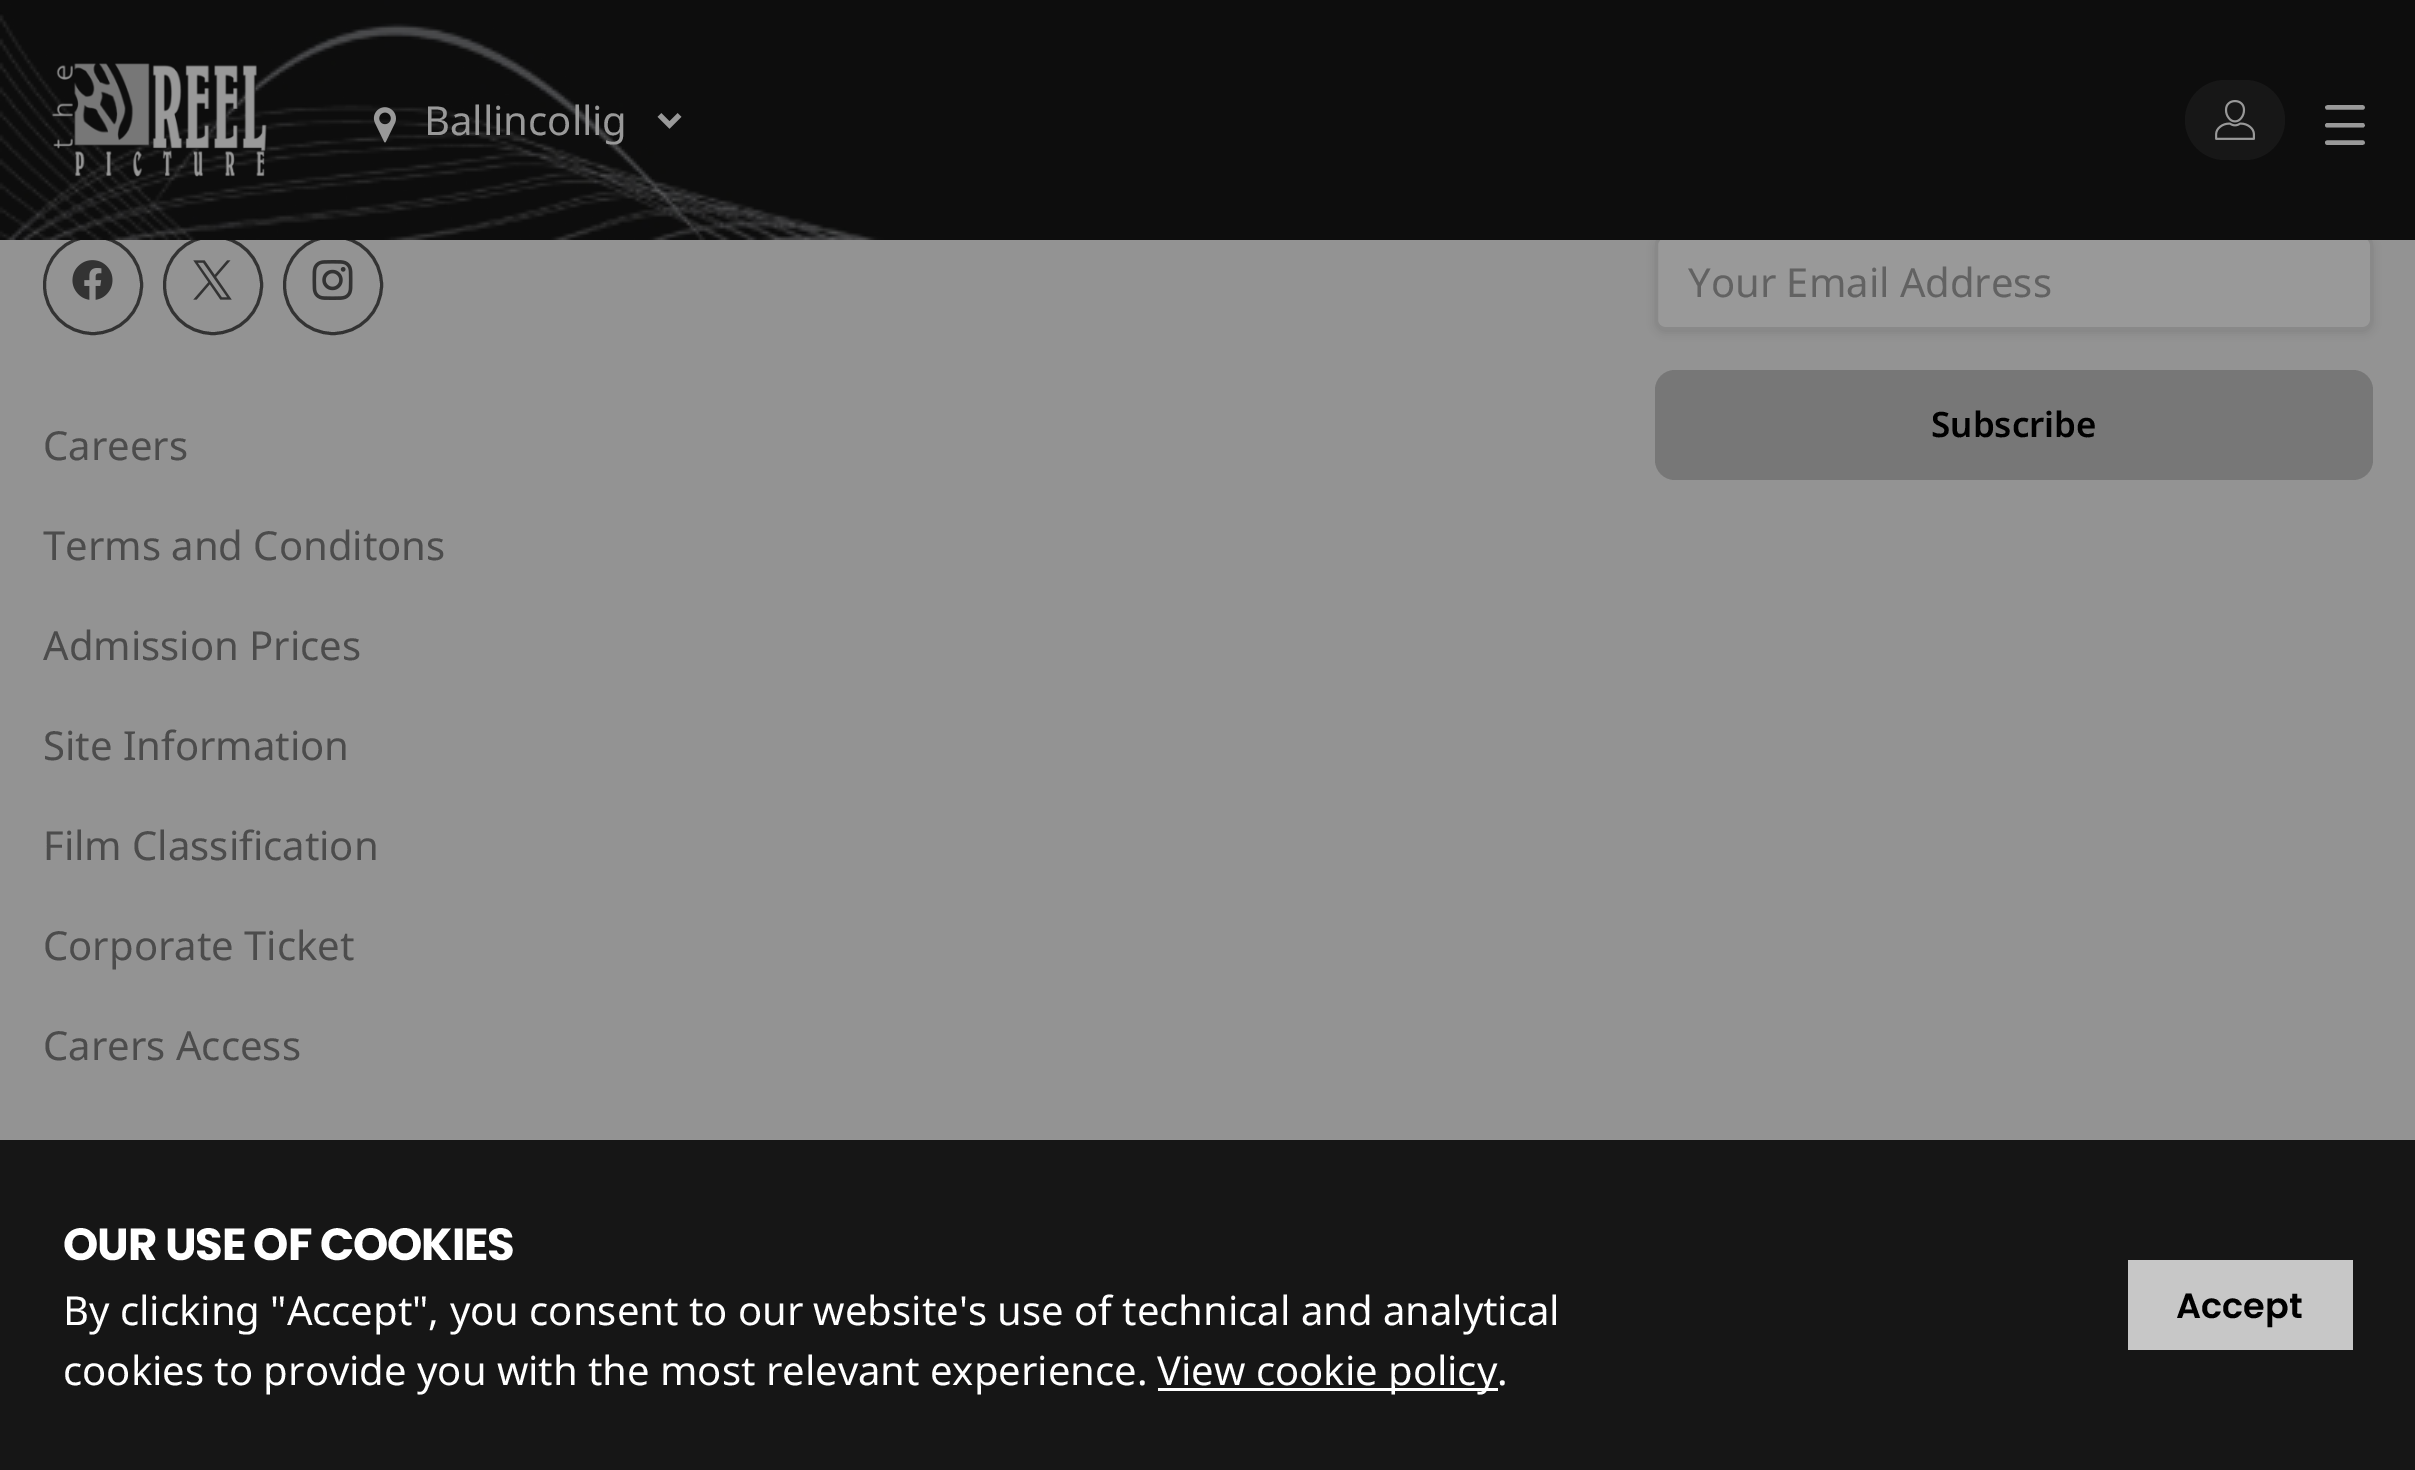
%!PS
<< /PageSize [2415 1470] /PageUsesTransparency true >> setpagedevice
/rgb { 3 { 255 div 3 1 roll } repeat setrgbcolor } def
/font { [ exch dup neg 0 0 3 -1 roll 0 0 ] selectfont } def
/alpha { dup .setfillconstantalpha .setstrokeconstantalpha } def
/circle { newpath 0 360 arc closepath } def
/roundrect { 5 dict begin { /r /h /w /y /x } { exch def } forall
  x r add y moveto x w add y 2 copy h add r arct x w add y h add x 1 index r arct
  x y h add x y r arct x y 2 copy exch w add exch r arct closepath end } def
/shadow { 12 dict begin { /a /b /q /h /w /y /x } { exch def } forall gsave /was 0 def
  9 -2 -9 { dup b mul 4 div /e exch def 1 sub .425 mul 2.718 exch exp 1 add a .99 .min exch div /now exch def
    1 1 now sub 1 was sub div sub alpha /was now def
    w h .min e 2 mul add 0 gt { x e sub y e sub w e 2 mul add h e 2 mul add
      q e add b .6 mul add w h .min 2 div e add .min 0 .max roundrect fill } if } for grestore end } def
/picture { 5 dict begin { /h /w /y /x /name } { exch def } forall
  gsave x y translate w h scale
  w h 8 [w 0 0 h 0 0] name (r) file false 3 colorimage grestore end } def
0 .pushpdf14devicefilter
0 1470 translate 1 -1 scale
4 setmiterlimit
147 147 147 rgb
0 0 2415 1470 rectfill
0 0 0 rgb
1655 238 718 95 10 4 0.1 shadow
153 153 153 rgb
1656.5 236.5 715 92 8.5 roundrect gsave fill grestore
137 137 137 rgb
3 setlinewidth
stroke
51 51 51 rgb
93 285 48.5 circle stroke
213 285 48.5 circle stroke
333 285 48.5 circle stroke
(img/1.rgb) 0 0 2415 240 picture
(img/2.rgb) 51 63 217 115 picture
(img/3.rgb) 373 107 23 36 picture
153 153 153 rgb
5 setlinewidth
659.5 115 moveto 669.5 125 lineto 679.5 115 lineto stroke
23 23 23 rgb
2185 80 100 80 40 roundrect fill
(img/4.rgb) 2215 100 40 40 picture
119 119 119 rgb
1655 370 718 110 20 roundrect fill
(img/5.rgb) 72 260 41 40 picture
(img/6.rgb) 193 260 39 40 picture
(img/7.rgb) 312 260 41 40 picture
[
  [0 1140 2415 330 22 22 22]
  [1158 1388 340 3 255 255 255]
  [2128 1260 225 90 199 199 199]
] { aload pop rgb rectfill } forall
/NotoSans-Regular 40 font
153 153 153 rgb
424 135 moveto (Ballincollig) show
/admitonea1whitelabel-Regular 40 font
2325 145 moveto (@) show
/NotoSans-Regular 40 font
98 98 98 rgb
1688 297 moveto (Your Email Address) show
/NotoSans-SemiBold 35 font
0 0 0 rgb
1931 437 moveto (Subscribe) show
/NotoSans-Regular 40 font
76 76 76 rgb
[
  [(Careers) 43 460]
  [(Terms and Conditons) 43 560]
  [(Admission Prices) 43 660]
  [(Site Information) 43 760]
  [(Film Classification) 43 860]
  [(Corporate Ticket) 43 960]
  [(Carers Access) 43 1060]
] { aload pop moveto show } forall
/Poppins-Bold 45 font
255 255 255 rgb
63 1260 moveto -1.1 0 (OUR USE OF COOKIES) ashow
/NotoSans-Regular 40 font
[
  [(By clicking "Accept", you consent to our website's use of technical and analytical) 63 1325]
  [(cookies to provide you with the most relevant experience.) 63 1385]
  [(View cookie policy.) 1157 1385]
] { aload pop moveto show } forall
/Poppins-SemiBold 35 font
0 0 0 rgb
2176 1318 moveto (Accept) show
.poppdf14devicefilter showpage
